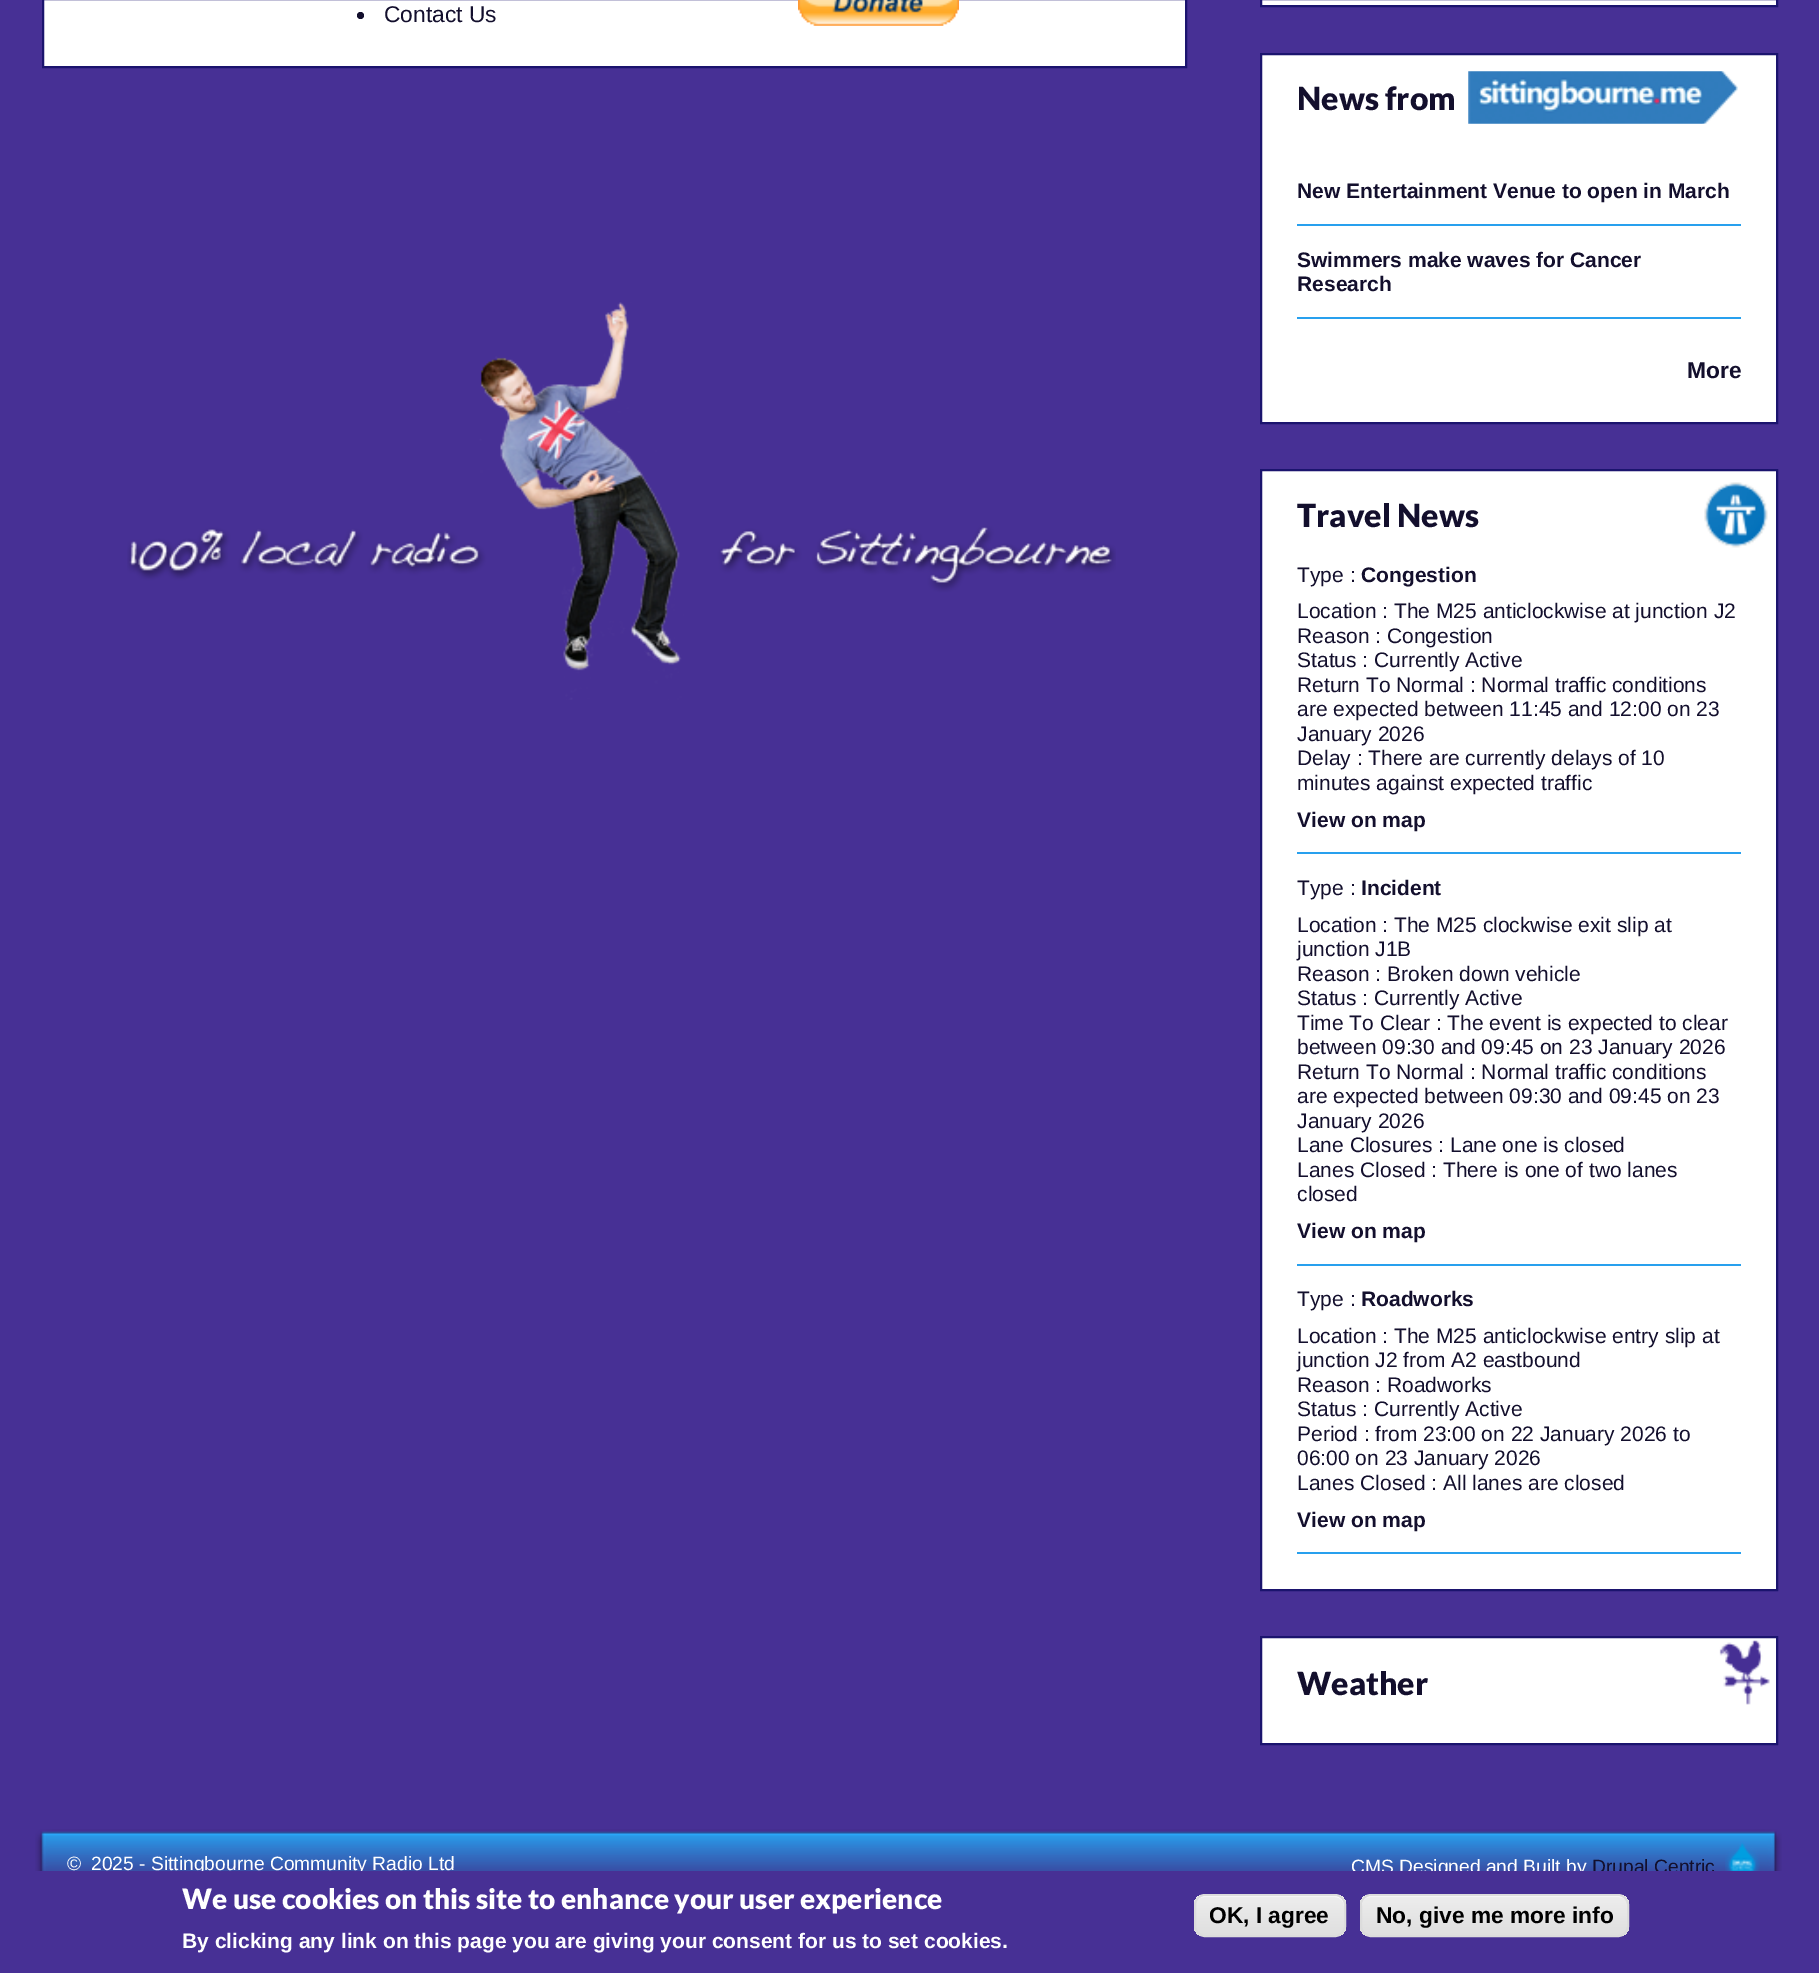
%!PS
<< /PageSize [1819 1973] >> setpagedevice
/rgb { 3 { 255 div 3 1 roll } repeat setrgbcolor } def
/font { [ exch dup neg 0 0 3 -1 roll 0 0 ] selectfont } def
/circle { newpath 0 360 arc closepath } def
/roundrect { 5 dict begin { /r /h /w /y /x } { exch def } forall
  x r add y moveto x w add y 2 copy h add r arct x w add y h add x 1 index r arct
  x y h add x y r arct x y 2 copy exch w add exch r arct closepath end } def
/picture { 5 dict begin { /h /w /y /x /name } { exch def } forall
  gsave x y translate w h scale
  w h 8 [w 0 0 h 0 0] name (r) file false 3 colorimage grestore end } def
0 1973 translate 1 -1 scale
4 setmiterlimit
71 48 149 rgb
0 0 1819 1973 rectfill
255 255 255 rgb
43 -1 moveto 1186 -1 lineto 1186 67 lineto 43 67 lineto closepath gsave fill grestore
27 20 110 rgb
2 setlinewidth
stroke
19 15 45 rgb
360.5 15.5 3.5 circle fill
(img/1.rgb) 798 0 161 26 picture
(img/2.rgb) 127 302 989 398 picture
255 255 255 rgb
1261 -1 moveto 1777 -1 lineto 1777 6 lineto 1261 6 lineto closepath gsave fill grestore
27 20 110 rgb
stroke
255 255 255 rgb
1261 54 moveto 1777 54 lineto 1777 423 lineto 1261 423 lineto closepath gsave fill grestore
27 20 110 rgb
stroke
(img/3.rgb) 1468 71 270 53 picture
[
  [1297 224 444 2 40 160 238]
  [1297 317 444 2 40 160 238]
  [1262 471 514 1118 255 255 255]
] { aload pop rgb rectfill } forall
(img/4.rgb) 1704 482 64 66 picture
27 20 110 rgb
1261 470 516 1120 rectstroke
[
  [1297 852 444 2 40 160 238]
  [1297 1264 444 2 40 160 238]
  [1297 1552 444 2 40 160 238]
  [1262 1638 514 105 255 255 255]
] { aload pop rgb rectfill } forall
(img/5.rgb) 1719 1640 51 65 picture
27 20 110 rgb
1261 1637 516 107 rectstroke
(img/6.rgb) 35 1829 1747 42 picture
(img/7.rgb) 1725 1842 35 29 picture
gsave
1194 1894 152 43 11 roundrect clip newpath
gsave 1194 1895 moveto 1346 1895 lineto 1346 1936 lineto 1194 1936 lineto closepath clip newpath
<< /ShadingType 2 /ColorSpace /DeviceRGB /Coords [1195 1895 1195 1936] /Extend [true true] /Function << /FunctionType 3 /Domain [0 1] /Functions [<< /FunctionType 2 /Domain [0 1] /C0 [0.929 0.929 0.929] /C1 [0.929 0.929 0.929] /N 1 >> << /FunctionType 2 /Domain [0 1] /C0 [0.929 0.929 0.929] /C1 [0.875 0.875 0.875] /N 1 >>] /Bounds [0.05] /Encode [0 1 0 1] >> >> shfill grestore
grestore
255 255 255 rgb
1204 1897 moveto 1335 1897 lineto 1340 1897 1344 1901 1344 1906 curveto 1344 1904 lineto 1344 1899 1340 1895 1335 1895 curveto 1204 1895 lineto 1199 1895 1195 1899 1195 1904 curveto 1195 1906 lineto 1195 1901 1199 1897 1204 1897 curveto closepath fill
220 220 220 rgb
1195 1895 150 41 10 roundrect stroke
gsave
1360 1894 269 43 11 roundrect clip newpath
gsave 1360 1895 moveto 1629 1895 lineto 1629 1936 lineto 1360 1936 lineto closepath clip newpath
<< /ShadingType 2 /ColorSpace /DeviceRGB /Coords [1362 1895 1362 1936] /Extend [true true] /Function << /FunctionType 3 /Domain [0 1] /Functions [<< /FunctionType 2 /Domain [0 1] /C0 [0.929 0.929 0.929] /C1 [0.929 0.929 0.929] /N 1 >> << /FunctionType 2 /Domain [0 1] /C0 [0.929 0.929 0.929] /C1 [0.875 0.875 0.875] /N 1 >>] /Bounds [0.05] /Encode [0 1 0 1] >> >> shfill grestore
grestore
255 255 255 rgb
1370 1897 moveto 1619 1897 lineto 1624 1897 1628 1901 1628 1906 curveto 1628 1904 lineto 1628 1899 1624 1895 1619 1895 curveto 1371 1895 lineto 1366 1895 1362 1899 1362 1904 curveto 1362 1906 lineto 1362 1901 1365 1897 1370 1897 curveto closepath fill
220 220 220 rgb
1361 1895 267 41 10 roundrect stroke
/LiberationSans-Regular 22.75 font
19 15 45 rgb
384 22 moveto (Contact Us) show
/Lato-Black 32 font
1297 110 moveto (News from) show
/LiberationSans-Bold 21 font
[
  [(New Entertainment Venue to open in March) 1297 198]
  [(Swimmers make waves for Cancer) 1297 267]
  [(Research) 1297 291]
] { aload pop moveto show } forall
/LiberationSans-Bold 22.75 font
1687 378 moveto (More) show
/Lato-Black 32 font
1297 527 moveto (Travel News) show
/LiberationSans-Regular 21 font
1297 582 moveto (Type :) show
/LiberationSans-Bold 21 font
1361 582 moveto (Congestion) show
/LiberationSans-Regular 21 font
[
  [(Location : The M25 anticlockwise at junction J2) 1297 618]
  [(Reason : Congestion) 1297 643]
  [(Status : Currently Active) 1297 667]
  [(Return To Normal : Normal traffic conditions) 1297 692]
  [(are expected between 11:45 and 12:00 on 23) 1297 716]
  [(January 2026) 1297 741]
  [(Delay : There are currently delays of 10) 1297 765]
  [(minutes against expected traffic) 1297 790]
] { aload pop moveto show } forall
/LiberationSans-Bold 21 font
1297 827 moveto (View on map) show
/LiberationSans-Regular 21 font
1297 895 moveto (Type :) show
/LiberationSans-Bold 21 font
1361 895 moveto (Incident) show
/LiberationSans-Regular 21 font
[
  [(Location : The M25 clockwise exit slip at) 1297 932]
  [(junction J1B) 1297 956]
  [(Reason : Broken down vehicle) 1297 981]
  [(Status : Currently Active) 1297 1005]
  [(Time To Clear : The event is expected to clear) 1297 1030]
  [(between 09:30 and 09:45 on 23 January 2026) 1297 1054]
  [(Return To Normal : Normal traffic conditions) 1297 1079]
  [(are expected between 09:30 and 09:45 on 23) 1297 1103]
  [(January 2026) 1297 1128]
  [(Lane Closures : Lane one is closed) 1297 1152]
  [(Lanes Closed : There is one of two lanes) 1297 1177]
  [(closed) 1297 1201]
] { aload pop moveto show } forall
/LiberationSans-Bold 21 font
1297 1238 moveto (View on map) show
/LiberationSans-Regular 21 font
1297 1306 moveto (Type :) show
/LiberationSans-Bold 21 font
1361 1306 moveto (Roadworks) show
/LiberationSans-Regular 21 font
[
  [(Location : The M25 anticlockwise entry slip at) 1297 1343]
  [(junction J2 from A2 eastbound) 1297 1367]
  [(Reason : Roadworks) 1297 1392]
  [(Status : Currently Active) 1297 1416]
  [(Period : from 23:00 on 22 January 2026 to) 1297 1441]
  [(06:00 on 23 January 2026) 1297 1465]
  [(Lanes Closed : All lanes are closed) 1297 1490]
] { aload pop moveto show } forall
/LiberationSans-Bold 21 font
1297 1527 moveto (View on map) show
/Lato-Black 32 font
1297 1695 moveto (Weather) show
/LiberationSans-Regular 19.25 font
255 255 255 rgb
[
  [(©) 67 1870]
  [(2025 - Sittingbourne Community Radio Ltd) 91 1870]
  [(CMS Designed and Built by) 1351 1873]
] { aload pop moveto show } forall
19 15 45 rgb
1592 1873 moveto (Drupal Centric) show
71 48 149 rgb
195 1871 1519 6 rectfill
/Lato-Black 28 font
255 255 255 rgb
182 1909 moveto (We use cookies on this site to enhance your user experience) show
/LiberationSans-Bold 21 font
182 1948 moveto (By clicking any link on this page you are giving your consent for us to set cookies.) show
/LiberationSans-Bold 22.75 font
0 0 0 rgb
1209 1923 moveto (OK, I agree) show
1376 1923 moveto (No, give me more info) show
showpage
